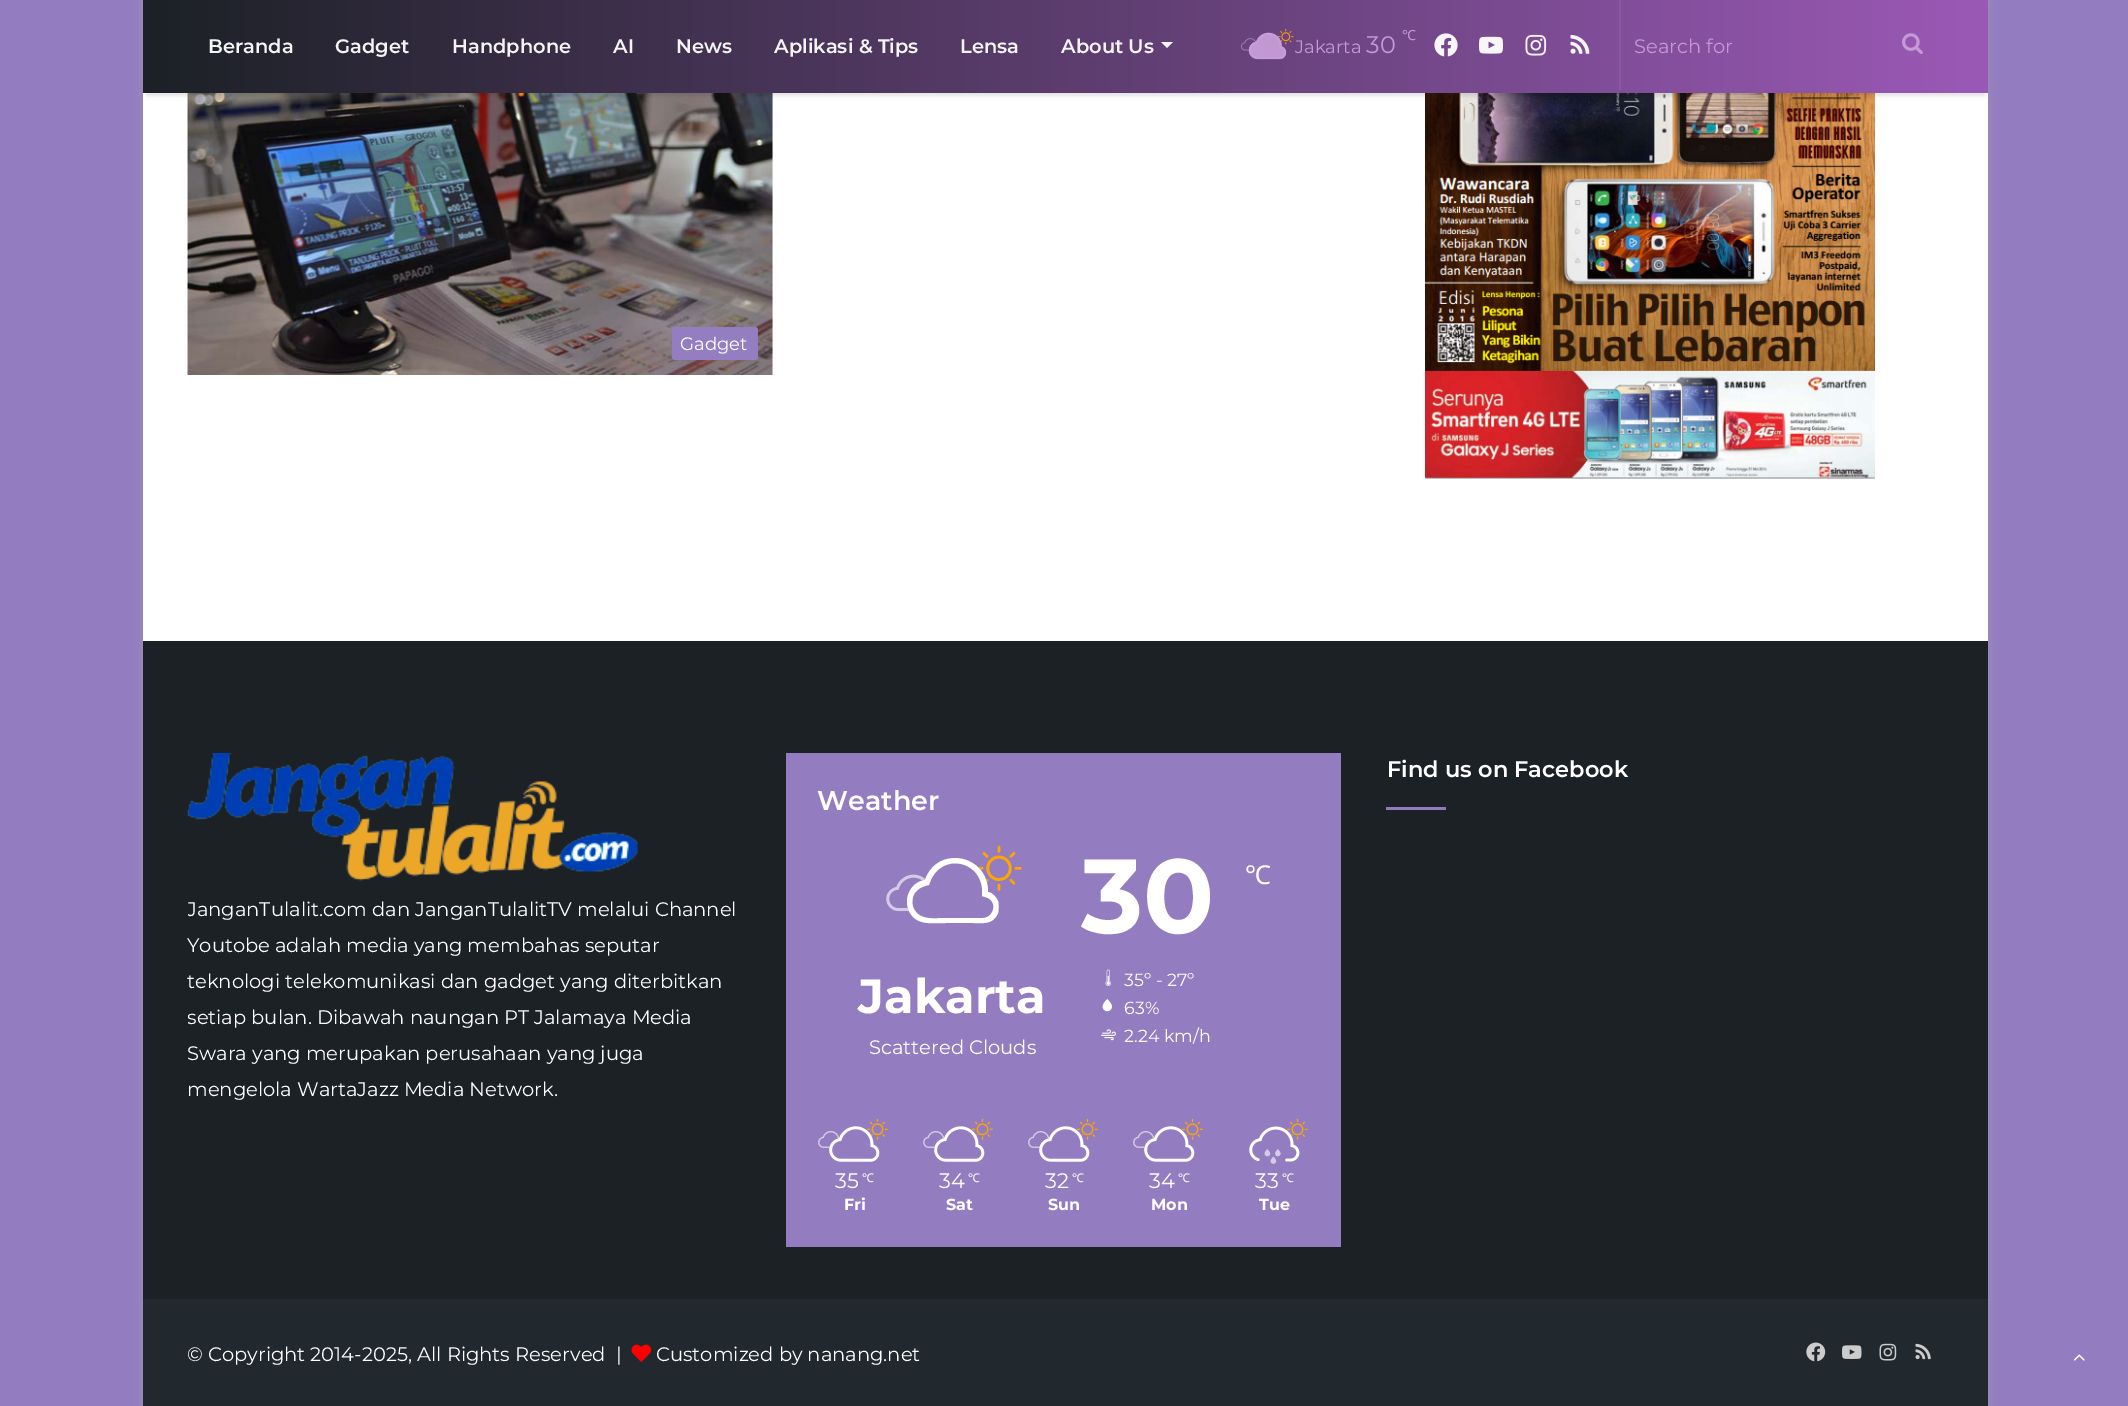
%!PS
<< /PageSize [2128 1406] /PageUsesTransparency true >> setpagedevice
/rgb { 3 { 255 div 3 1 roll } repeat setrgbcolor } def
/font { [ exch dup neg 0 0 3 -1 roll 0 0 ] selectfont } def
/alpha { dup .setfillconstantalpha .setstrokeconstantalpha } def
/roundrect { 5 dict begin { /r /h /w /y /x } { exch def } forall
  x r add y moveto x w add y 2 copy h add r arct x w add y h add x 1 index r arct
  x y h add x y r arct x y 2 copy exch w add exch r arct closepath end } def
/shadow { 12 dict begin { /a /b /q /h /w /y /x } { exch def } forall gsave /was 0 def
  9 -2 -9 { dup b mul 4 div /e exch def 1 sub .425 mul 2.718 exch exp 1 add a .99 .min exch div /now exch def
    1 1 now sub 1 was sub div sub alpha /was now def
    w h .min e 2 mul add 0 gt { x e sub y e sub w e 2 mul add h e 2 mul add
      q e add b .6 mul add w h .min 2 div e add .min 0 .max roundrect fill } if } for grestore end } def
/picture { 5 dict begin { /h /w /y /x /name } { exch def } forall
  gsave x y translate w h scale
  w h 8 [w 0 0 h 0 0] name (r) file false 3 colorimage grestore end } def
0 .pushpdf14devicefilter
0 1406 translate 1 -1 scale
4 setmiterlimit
147 124 191 rgb
0 0 2128 1406 rectfill
171 171 171 rgb
143 -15 1845 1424 0 5 0.5 shadow
255 255 255 rgb
143 93 1845 548 rectfill
(img/10.rgb) 187 93 586 282 picture
(img/11.rgb) 1425 93 450 386 picture
0 0 0 rgb
146 9 1839 87 0 1.5 0.1 shadow
gsave 143 0 moveto 1988 0 lineto 1988 93 lineto 143 93 lineto closepath clip newpath
<< /ShadingType 2 /ColorSpace /DeviceRGB /Coords [143 47 1988 46] /Extend [true true] /Function << /FunctionType 2 /Domain [0 1] /C0 [0.11 0.129 0.149] /C1 [0.608 0.349 0.714] /N 1 >> >> shfill grestore
247 245 248 rgb
1161 42 moveto 1173 42 lineto 1167 48 lineto closepath fill
(img/1.rgb) 1278 28 16 17 picture
(img/4.rgb) 1241 38 18 13 picture
(img/2.rgb) 1248 32 39 28 picture
(img/3.rgb) 1248 32 39 28 picture
(img/5.rgb) 1434 33 24 24 picture
(img/6.rgb) 1479 36 24 18 picture
(img/7.rgb) 1525 34 22 22 picture
(img/8.rgb) 1570 34 20 20 picture
138 90 160 rgb
1619 0 2 90 rectfill
(img/9.rgb) 1902 33 21 21 picture
148 125 192 rgb
672 327 86 33 3 roundrect fill
28 33 38 rgb
143 641 1845 658 rectfill
146 123 189 rgb
1386 807 60 3 rectfill
(img/12.rgb) 187 753 451 128 picture
147 124 191 rgb
786 753 555 494 rectfill
(img/13.rgb) 977 845 45 46 picture
(img/14.rgb) 886 874 40 38 picture
(img/15.rgb) 907 867 80 45 picture
255 255 255 rgb
988 892 moveto 993 893 996 897 998 901 curveto 999 905 999 909 998 913 curveto 993 925 983 923 973 923 curveto 946 923 lineto 932 923 916 926 909 911 curveto 903 898 911 882 925 880 curveto 937 845 988 854 988 892 curveto closepath 983 918 moveto 993 918 998 903 988 898 curveto 982 896 lineto 986 860 939 850 929 885 curveto 922 886 915 890 913 897 curveto 912 901 912 906 914 909 curveto 920 921 935 918 946 918 curveto closepath fill
(img/16.rgb) 1105 969 6 17 picture
(img/17.rgb) 1102 999 10 13 picture
(img/18.rgb) 1101 1029 15 12 picture
(img/19.rgb) 867 1118 21 22 picture
(img/21.rgb) 818 1131 22 17 picture
(img/22.rgb) 829 1135 43 13 picture
(img/20.rgb) 829 1126 51 36 picture
(img/19.rgb) 972 1118 21 22 picture
(img/21.rgb) 923 1131 22 17 picture
(img/22.rgb) 934 1135 43 13 picture
(img/20.rgb) 934 1126 51 36 picture
(img/19.rgb) 1077 1118 21 22 picture
(img/21.rgb) 1028 1131 22 17 picture
(img/22.rgb) 1039 1135 43 13 picture
(img/20.rgb) 1039 1126 51 36 picture
(img/19.rgb) 1182 1118 21 22 picture
(img/21.rgb) 1133 1131 22 17 picture
(img/22.rgb) 1144 1135 43 13 picture
(img/20.rgb) 1144 1126 51 36 picture
(img/19.rgb) 1287 1118 21 22 picture
(img/24.rgb) 1291 1135 1 2 picture
(img/23.rgb) 1249 1126 51 36 picture
(img/25.rgb) 1264 1149 7 8 picture
(img/26.rgb) 1275 1149 6 8 picture
(img/27.rgb) 1270 1156 7 8 picture
33 40 46 rgb
143 1299 1845 107 rectfill
(img/28.rgb) 631 1344 20 18 picture
(img/29.rgb) 1806 1342 20 20 picture
(img/30.rgb) 1842 1345 20 14 picture
(img/31.rgb) 1879 1343 18 18 picture
(img/32.rgb) 1915 1343 16 17 picture
(img/33.rgb) 2073 1354 12 7 picture
/Montserrat-SemiBold 19.5 font
244 244 245 rgb
[
  [(Beranda) 208 53]
  [(Gadget) 335 53]
  [(Handphone) 452 53]
  [(AI) 613 53]
  [(News) 676 53]
  [(Aplikasi & Tips) 774 53]
  [(Lensa) 960 53]
  [(About Us) 1061 53]
] { aload pop moveto show } forall
/Montserrat-Regular 18 font
196 153 212 rgb
1295 53 moveto (Jakarta) show
/Montserrat-Regular 24 font
1366 53 moveto (30) show
/NotoSans-Regular 14 font
1402 40 moveto (℃) show
/Montserrat-Regular 19.5 font
1634 53 moveto (Search for) show
/Montserrat-Regular 18 font
255 255 255 rgb
680 350 moveto (Gadget) show
/Montserrat-SemiBold 22.5 font
1387 777 moveto (Find us on Facebook) show
gsave
188 753 553 354 rectclip
/Montserrat-Regular 19.5 font
187 916 moveto (JanganTulalit.com dan JanganTulalitTV melalui Channel) show
grestore
/Montserrat-Regular 19.5 font
187 952 moveto (Youtobe adalah media yang membahas seputar) show
187 988 moveto (teknologi telekomunikasi dan gadget yang diterbitkan) show
gsave
188 753 553 354 rectclip
187 1024 moveto (setiap bulan. Dibawah naungan PT Jalamaya Media) show
grestore
187 1060 moveto (Swara yang merupakan perusahaan yang juga) show
187 1096 moveto (mengelola WartaJazz Media Network.) show
/Montserrat-SemiBold 27 font
817 810 moveto (Weather) show
/Montserrat-Bold 48 font
858 1013 moveto (Jakarta) show
/Montserrat-Regular 19.5 font
869 1054 moveto (Scattered Clouds) show
/Montserrat-Bold 105 font
1081 933 moveto (30) show
/NotoSans-Regular 26 font
1245 884 moveto (℃) show
/Montserrat-Regular 17.5 font
[
  [(35º - 27º) 1124 986]
  [(63%) 1124 1014]
  [(2.24 km/h) 1124 1042]
] { aload pop moveto show } forall
/Montserrat-Regular 21 font
835 1188 moveto (35) show
/NotoSans-Regular 12 font
862 1182 moveto (℃) show
/Montserrat-Bold 16 font
844 1210 moveto (Fri) show
/Montserrat-Regular 21 font
939 1188 moveto (34) show
/NotoSans-Regular 12 font
968 1182 moveto (℃) show
/Montserrat-Bold 16 font
946 1210 moveto (Sat) show
/Montserrat-Regular 21 font
1045 1188 moveto (32) show
/NotoSans-Regular 12 font
1072 1182 moveto (℃) show
/Montserrat-Bold 16 font
1048 1210 moveto (Sun) show
/Montserrat-Regular 21 font
1149 1188 moveto (34) show
/NotoSans-Regular 12 font
1178 1182 moveto (℃) show
/Montserrat-Bold 16 font
1151 1210 moveto (Mon) show
/Montserrat-Regular 21 font
1255 1188 moveto (33) show
/NotoSans-Regular 12 font
1282 1182 moveto (℃) show
/Montserrat-Bold 16 font
1259 1210 moveto (Tue) show
/Montserrat-Regular 19.5 font
187 1361 moveto (© Copyright 2014-2025, All Rights Reserved  |) show
656 1361 moveto (Customized by nanang.net) show
.poppdf14devicefilter showpage
